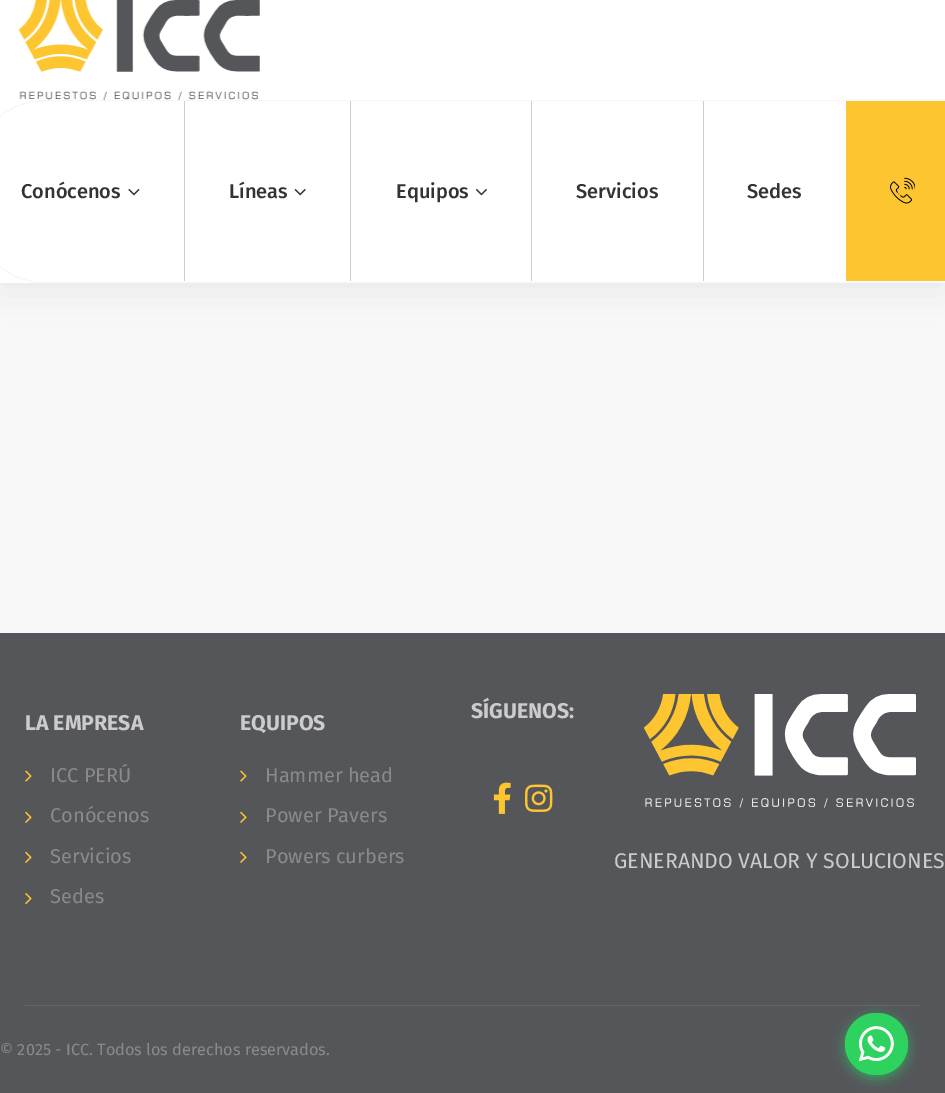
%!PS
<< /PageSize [945 1093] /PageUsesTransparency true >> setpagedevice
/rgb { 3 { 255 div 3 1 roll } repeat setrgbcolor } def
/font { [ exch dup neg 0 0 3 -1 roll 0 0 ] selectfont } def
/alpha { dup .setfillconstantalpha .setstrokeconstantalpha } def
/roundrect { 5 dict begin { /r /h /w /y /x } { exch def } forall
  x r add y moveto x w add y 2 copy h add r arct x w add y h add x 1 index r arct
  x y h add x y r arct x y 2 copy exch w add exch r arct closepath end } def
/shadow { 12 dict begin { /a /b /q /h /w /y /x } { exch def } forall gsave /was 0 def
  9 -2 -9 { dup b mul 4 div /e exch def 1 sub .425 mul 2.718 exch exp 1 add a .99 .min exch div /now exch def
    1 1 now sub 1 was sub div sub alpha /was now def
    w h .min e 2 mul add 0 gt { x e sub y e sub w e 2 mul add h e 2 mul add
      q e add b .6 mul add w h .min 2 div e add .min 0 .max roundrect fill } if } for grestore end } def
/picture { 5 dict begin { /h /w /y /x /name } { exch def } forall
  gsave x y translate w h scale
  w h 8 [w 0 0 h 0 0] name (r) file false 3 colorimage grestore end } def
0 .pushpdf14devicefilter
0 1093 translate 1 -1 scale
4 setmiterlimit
248 248 248 rgb
0 0 945 1093 rectfill
24 24 24 rgb
0 0 945 283 0 19 0.1 shadow
255 255 255 rgb
0 0 945 283 rectfill
(img/1.rgb) 18 0 242 100 picture
246 246 246 rgb
-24.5 100.5 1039 182 68.5 roundrect stroke
(img/2.rgb) 128 188 12 8 picture
204 204 204 rgb
184 101 1 180 rectfill
(img/3.rgb) 294 188 12 8 picture
350 101 1 180 rectfill
(img/4.rgb) 475 188 12 8 picture
[
  [531 101 1 180 204 204 204]
  [703 101 1 180 204 204 204]
  [846 101 99 180 253 197 47]
] { aload pop rgb rectfill } forall
(img/5.rgb) 890 177 25 27 picture
85 86 90 rgb
0 633 945 460 rectfill
(img/6.rgb) 493 782 18 32 picture
(img/7.rgb) 525 784 28 28 picture
(img/8.rgb) 25 770 7 12 picture
(img/9.rgb) 25 811 7 12 picture
(img/9.rgb) 25 851 7 12 picture
(img/10.rgb) 25 893 7 12 picture
(img/8.rgb) 240 770 7 12 picture
(img/9.rgb) 240 811 7 12 picture
(img/9.rgb) 240 851 7 12 picture
(img/11.rgb) 644 694 272 114 picture
100 101 104 rgb
25 1005 895 1 rectfill
37 211 102 rgb
845 1016 63 63 31.5 6 0.56 shadow
59 212 85 rgb
845 1013 63 62 31 roundrect fill
0.6 alpha
37 211 102 rgb
845 1013 63 62 31 roundrect fill
1 alpha
(img/12.rgb) 858 1026 36 36 picture
/FiraSans-Medium 20 font
51 51 51 rgb
[
  [(Conócenos) 21 198]
  [(Líneas) 229 198]
  [(Equipos) 396 198]
  [(Servicios) 576 198]
  [(Sedes) 747 198]
] { aload pop moveto show } forall
/FiraSans-Bold 21.25 font
204 204 204 rgb
471 718 moveto (SÍGUENOS:) show
25 730 moveto (LA EMPRESA) show
/FiraSans-Regular 20 font
138 138 141 rgb
[
  [(ICC PERÚ) 50 782]
  [(Conócenos) 50 822]
  [(Servicios) 50 863]
  [(Sedes) 50 903]
] { aload pop moveto show } forall
/FiraSans-Bold 21.25 font
204 204 204 rgb
240 730 moveto (EQUIPOS) show
/FiraSans-Regular 20 font
138 138 141 rgb
[
  [(Hammer head) 265 782]
  [(Power Pavers) 265 822]
  [(Powers curbers) 265 863]
] { aload pop moveto show } forall
/FiraSans-Regular 21.25 font
204 204 204 rgb
614 868 moveto (GENERANDO VALOR Y SOLUCIONES) show
/FiraSans-Regular 16.25 font
138 138 141 rgb
0 1055 moveto (© 2025 - ICC. Todos los derechos reservados.) show
.poppdf14devicefilter showpage
